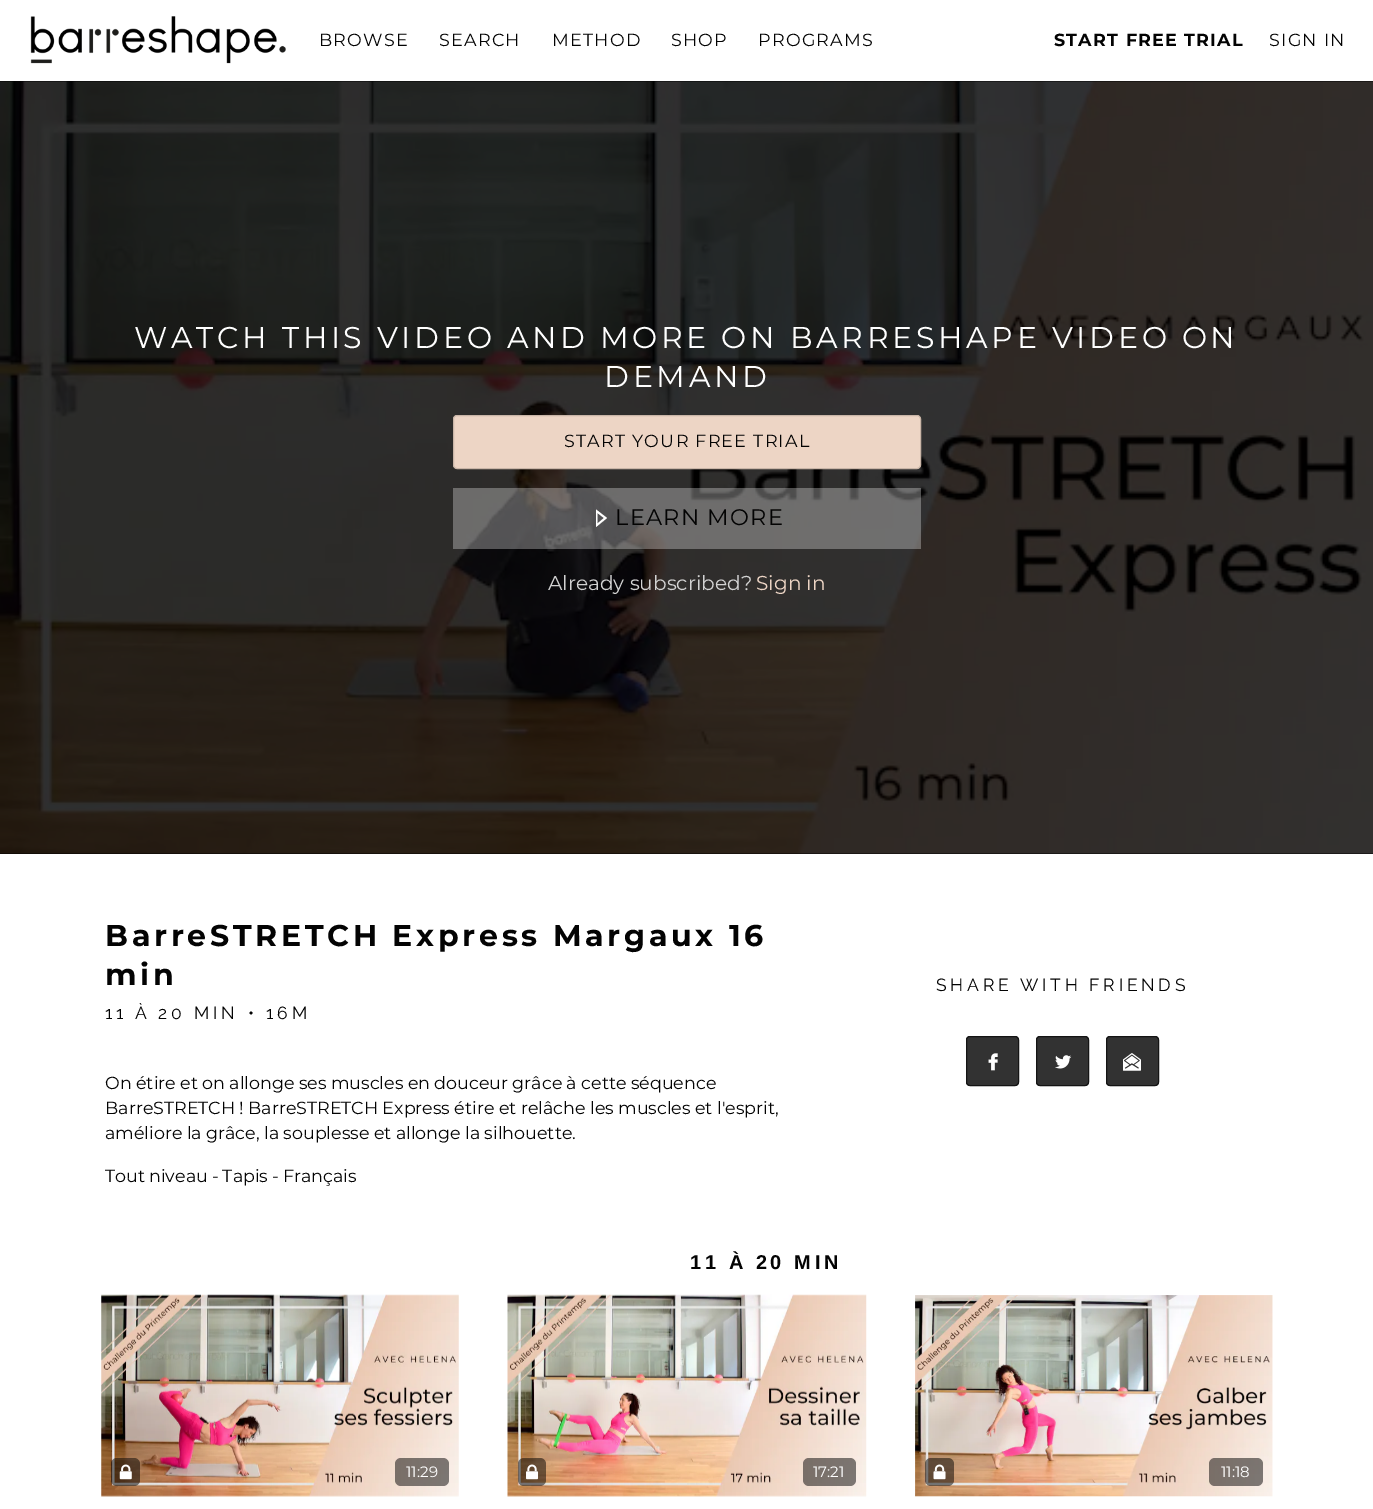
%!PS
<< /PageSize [1373 1509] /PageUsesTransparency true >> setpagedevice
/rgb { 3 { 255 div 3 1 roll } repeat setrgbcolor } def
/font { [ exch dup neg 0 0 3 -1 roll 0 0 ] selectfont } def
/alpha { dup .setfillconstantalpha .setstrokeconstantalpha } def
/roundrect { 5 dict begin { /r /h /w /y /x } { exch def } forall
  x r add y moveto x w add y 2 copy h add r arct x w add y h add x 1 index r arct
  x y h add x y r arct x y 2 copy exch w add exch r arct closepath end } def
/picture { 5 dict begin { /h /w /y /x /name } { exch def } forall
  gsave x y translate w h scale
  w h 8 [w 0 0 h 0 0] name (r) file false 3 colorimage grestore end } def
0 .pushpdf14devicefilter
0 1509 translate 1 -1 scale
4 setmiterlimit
255 255 255 rgb
0 0 1373 1509 rectfill
(img/1.rgb) 30 16 256 48 picture
0 0 0 rgb
0 81 1373 773 rectfill
(img/2.rgb) 0 81 1373 773 picture
237 213 197 rgb
453.5 415.5 467 53 3.5 roundrect gsave fill grestore
201 181 167 rgb
stroke
0.3 alpha
255 255 255 rgb
453 488 468 61 rectfill
1 alpha
596 527 moveto 596 509.5 lineto 607 518 lineto closepath 597.5 513 moveto 597.5 523.5 lineto 604 518 lineto closepath fill
50 50 50 rgb
966 1036 53 50 4 roundrect fill
(img/3.rgb) 988 1053 10 18 picture
20 20 20 rgb
966.5 1036.5 52 49 3.5 roundrect stroke
50 50 50 rgb
1036 1036 53 50 4 roundrect fill
(img/4.rgb) 1055 1055 17 14 picture
20 20 20 rgb
1036.5 1036.5 52 49 3.5 roundrect stroke
50 50 50 rgb
1106 1036 53 50 4 roundrect fill
(img/5.rgb) 1123 1053 18 18 picture
20 20 20 rgb
1106.5 1036.5 52 49 3.5 roundrect stroke
(img/6.rgb) 101 1294 358 203 picture
0.5 alpha
0 0 0 rgb
111 1458 29 28 6 roundrect fill
1 alpha
(img/7.rgb) 119 1464 13 16 picture
0.5 alpha
395 1458 54 28 6 roundrect fill
1 alpha
(img/8.rgb) 507 1294 360 203 picture
0.5 alpha
518 1458 28 28 6 roundrect fill
1 alpha
(img/9.rgb) 526 1464 13 16 picture
0.5 alpha
803 1458 53 28 6 roundrect fill
1 alpha
(img/10.rgb) 915 1295 358 202 picture
0.5 alpha
925 1458 29 28 6 roundrect fill
1 alpha
(img/11.rgb) 933 1464 13 16 picture
0.5 alpha
1209 1458 54 28 6 roundrect fill
/Montserrat-Regular 17.5 font
1 alpha
3 3 3 rgb
319 46 moveto 1.25 0 (BROWSE) ashow
439 46 moveto 1.25 0 (SEARCH) ashow
552 46 moveto 1.25 0 (METHOD) ashow
671 46 moveto 1.25 0 (SHOP) ashow
758 46 moveto 1.25 0 (PROGRAMS) ashow
/Montserrat-Bold 17.5 font
1054 46 moveto 1.25 0 (START FREE TRIAL) ashow
/Montserrat-Regular 17.5 font
1269 46 moveto 1.25 0 (SIGN IN) ashow
/Montserrat-Regular 30 font
255 255 255 rgb
134 348 moveto -0.5 0 32 3.75 0 (WATCH THIS VIDEO AND MORE ON BARRESHAPE VIDEO ON) awidthshow
604 387 moveto 3.75 0 (DEMAND) ashow
/Montserrat-Regular 17.5 font
3 3 3 rgb
564 447 moveto 1.25 0 (START YOUR FREE TRIAL) ashow
/Montserrat-Regular 22.5 font
615 525 moveto 1.25 0 (LEARN MORE) ashow
/Montserrat-Regular 20.1 font
210 210 210 rgb
548 590 moveto (Already subscribed?) show
237 213 197 rgb
756 590 moveto (Sign in) show
/Montserrat-Bold 30 font
3 3 3 rgb
105 946 moveto -0.5 0 32 3.75 0 (BarreSTRETCH Express Margaux 16) awidthshow
105 985 moveto 3.75 0 (min) ashow
/Raleway-Regular 17.5 font
105 1019 moveto -0.5 0 32 3.75 0 (11 À 20 MIN) awidthshow
248 1019 moveto 3.75 0 (• 16M) ashow
/Montserrat-Regular 17.5 font
105 1089 moveto -0.25 0 32 (On étire et on allonge ses muscles en douceur grâce à cette séquence) widthshow
105 1114 moveto -0.25 0 32 (BarreSTRETCH ! BarreSTRETCH Express étire et relâche les muscles et l'esprit,) widthshow
105 1139 moveto -0.25 0 32 (améliore la grâce, la souplesse et allonge la silhouette.) widthshow
105 1182 moveto -0.5 0 32 (Tout niveau - Tapis - Français) widthshow
/Raleway-Regular 17.5 font
936 991 moveto -0.25 0 32 3.75 0 (SHARE WITH FRIENDS) awidthshow
/LiberationSans-Bold 20 font
690 1269 moveto -0.5 0 32 3.75 0 (11 À 20 MIN) awidthshow
/Montserrat-Regular 15 font
255 255 255 rgb
[
  [(11:29) 406 1477]
  [(17:21) 813 1477]
  [(11:18) 1221 1477]
] { aload pop moveto show } forall
.poppdf14devicefilter showpage
